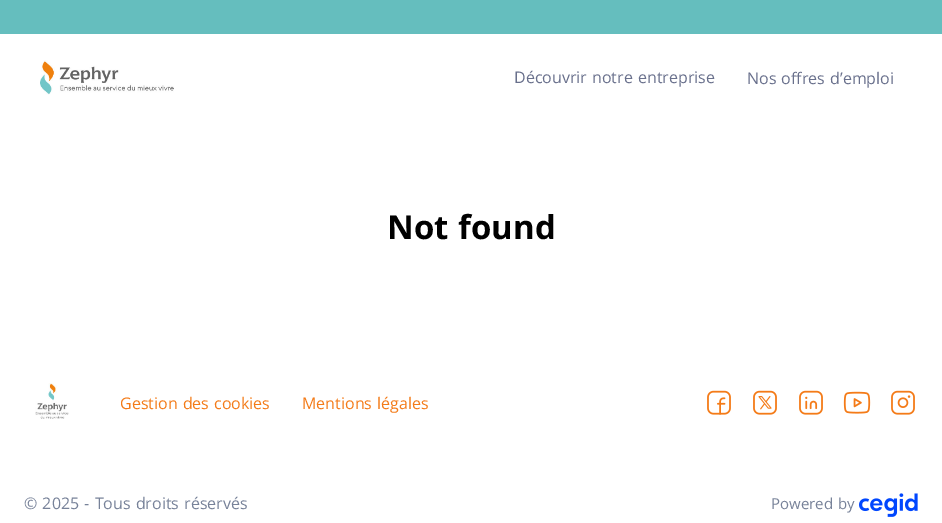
%!PS
<< /PageSize [942 523] >> setpagedevice
/rgb { 3 { 255 div 3 1 roll } repeat setrgbcolor } def
/font { [ exch dup neg 0 0 3 -1 roll 0 0 ] selectfont } def
/picture { 5 dict begin { /h /w /y /x /name } { exch def } forall
  gsave x y translate w h scale
  w h 8 [w 0 0 h 0 0] name (r) file false 3 colorimage grestore end } def
0 523 translate 1 -1 scale
4 setmiterlimit
255 255 255 rgb
0 0 942 523 rectfill
101 190 190 rgb
0 0 942 34 rectfill
(img/1.rgb) 40 60 134 35 picture
(img/2.rgb) 35 383 34 36 picture
(img/3.rgb) 707 390 24 25 picture
(img/4.rgb) 753 390 24 25 picture
(img/5.rgb) 799 390 24 25 picture
(img/6.rgb) 843 391 28 23 picture
(img/7.rgb) 891 390 24 25 picture
(img/8.rgb) 859 493 59 24 picture
/OpenSans-Regular 16 font
105 112 140 rgb
514 83 moveto 1 0 32 (Découvrir notre entreprise) widthshow
747 84 moveto 1 0 32 (Nos offres d’emploi) widthshow
/OpenSans-Bold 33 font
0 0 0 rgb
387 239 moveto 1 0 32 (Not found) widthshow
/OpenSans-Regular 16 font
244 123 24 rgb
120 409 moveto 1 0 32 (Gestion des cookies) widthshow
302 409 moveto 1 0 32 (Mentions légales) widthshow
119 130 153 rgb
24 509 moveto 1 0 32 (© 2025 - Tous droits réservés) widthshow
/OpenSans-Regular 15 font
771 509 moveto 1 0 32 (Powered by) widthshow
showpage
